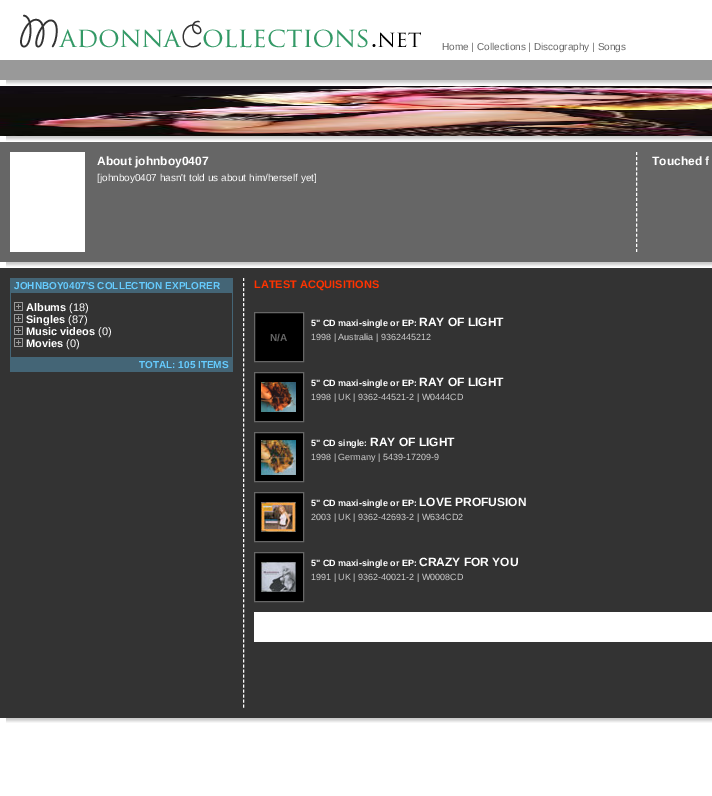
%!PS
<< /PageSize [712 796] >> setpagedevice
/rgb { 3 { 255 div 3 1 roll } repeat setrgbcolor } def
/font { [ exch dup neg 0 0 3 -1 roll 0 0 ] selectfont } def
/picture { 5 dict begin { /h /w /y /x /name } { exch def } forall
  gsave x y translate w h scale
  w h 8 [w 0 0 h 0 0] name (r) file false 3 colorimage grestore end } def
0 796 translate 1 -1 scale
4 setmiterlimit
255 255 255 rgb
0 0 712 796 rectfill
(img/1.rgb) 20 14 401 34 picture
(img/2.rgb) 6 80 706 5 picture
153 153 153 rgb
0 60 712 20 rectfill
(img/2.rgb) 6 136 706 5 picture
(img/3.rgb) 0 86 712 50 picture
(img/2.rgb) 6 262 706 5 picture
102 102 102 rgb
0 142 712 120 rectfill
255 255 255 rgb
10 152 75 100 rectfill
[3 2.11] 0 setdash
636.5 152 moveto 636.5 252 lineto stroke
(img/2.rgb) 6 718 706 5 picture
[
  [0 268 712 450 51 51 51]
  [10 278 223 15 68 101 118]
  [232 293 1 64 68 101 118]
  [10 293 1 64 68 101 118]
] { aload pop rgb rectfill } forall
(img/4.rgb) 14 302 9 9 picture
(img/4.rgb) 14 314 9 9 picture
(img/4.rgb) 14 326 9 9 picture
(img/4.rgb) 14 338 9 9 picture
10 357 223 15 rectfill
255 255 255 rgb
[3 2.02] 0 setdash
243.5 278 moveto 243.5 708 lineto stroke
0 0 0 rgb
254.5 312.5 moveto 303.5 312.5 lineto 303.5 361.5 lineto 254.5 361.5 lineto closepath gsave fill grestore
102 102 102 rgb
[] 0 setdash
stroke
0 0 0 rgb
254.5 372.5 moveto 303.5 372.5 lineto 303.5 421.5 lineto 254.5 421.5 lineto closepath gsave fill grestore
102 102 102 rgb
stroke
(img/5.rgb) 261 382 35 30 picture
0 0 0 rgb
254.5 432.5 moveto 303.5 432.5 lineto 303.5 481.5 lineto 254.5 481.5 lineto closepath gsave fill grestore
102 102 102 rgb
stroke
(img/6.rgb) 261 440 35 35 picture
0 0 0 rgb
254.5 492.5 moveto 303.5 492.5 lineto 303.5 541.5 lineto 254.5 541.5 lineto closepath gsave fill grestore
102 102 102 rgb
stroke
(img/7.rgb) 261 502 35 30 picture
0 0 0 rgb
254.5 552.5 moveto 303.5 552.5 lineto 303.5 601.5 lineto 254.5 601.5 lineto closepath gsave fill grestore
102 102 102 rgb
stroke
(img/8.rgb) 261 562 35 30 picture
255 255 255 rgb
254 612 458 30 rectfill
/LiberationSans-Regular 10 font
102 102 102 rgb
442 50 moveto (Home | Collections | Discography | Songs) show
/LiberationSans-Bold 12 font
255 255 255 rgb
97 165 moveto (About johnboy0407) show
/LiberationSans-Regular 10 font
97 181 moveto ([johnboy0407 hasn't told us about him/herself yet]) show
/LiberationSans-Bold 12 font
652 165 moveto (Touched f) show
/LiberationSans-Bold 10 font
102 204 255 rgb
14 289 moveto (JOHNBOY0407'S COLLECTION EXPLORER) show
/LiberationSans-Bold 11 font
255 255 255 rgb
26 311 moveto (Albums) show
/LiberationSans-Regular 11 font
69 311 moveto (\(18\)) show
/LiberationSans-Bold 11 font
26 323 moveto (Singles) show
/LiberationSans-Regular 11 font
68 323 moveto (\(87\)) show
/LiberationSans-Bold 11 font
26 335 moveto (Music videos) show
/LiberationSans-Regular 11 font
98 335 moveto (\(0\)) show
/LiberationSans-Bold 11 font
26 347 moveto (Movies) show
/LiberationSans-Regular 11 font
66 347 moveto (\(0\)) show
/LiberationSans-Bold 10 font
102 204 255 rgb
139 368 moveto (TOTAL: 105 ITEMS) show
/LiberationSans-Bold 11 font
255 51 0 rgb
254 288 moveto (LATEST ACQUISITIONS) show
/LiberationSans-Bold 10 font
102 102 102 rgb
270 341 moveto (N/A) show
/LiberationSans-Bold 9 font
255 255 255 rgb
311 326 moveto (5" CD maxi-single or EP:) show
/LiberationSans-Bold 12 font
419 326 moveto (RAY OF LIGHT) show
/LiberationSans-Regular 9 font
204 204 204 rgb
311 340 moveto (1998 | Australia | 9362445212) show
/LiberationSans-Bold 9 font
255 255 255 rgb
311 386 moveto (5" CD maxi-single or EP:) show
/LiberationSans-Bold 12 font
419 386 moveto (RAY OF LIGHT) show
/LiberationSans-Regular 9 font
204 204 204 rgb
311 400 moveto (1998 | UK | 9362-44521-2 | W0444CD) show
/LiberationSans-Bold 9 font
255 255 255 rgb
311 446 moveto (5" CD single:) show
/LiberationSans-Bold 12 font
370 446 moveto (RAY OF LIGHT) show
/LiberationSans-Regular 9 font
204 204 204 rgb
311 460 moveto (1998 | Germany | 5439-17209-9) show
/LiberationSans-Bold 9 font
255 255 255 rgb
311 506 moveto (5" CD maxi-single or EP:) show
/LiberationSans-Bold 12 font
419 506 moveto (LOVE PROFUSION) show
/LiberationSans-Regular 9 font
204 204 204 rgb
311 520 moveto (2003 | UK | 9362-42693-2 | W634CD2) show
/LiberationSans-Bold 9 font
255 255 255 rgb
311 566 moveto (5" CD maxi-single or EP:) show
/LiberationSans-Bold 12 font
419 566 moveto (CRAZY FOR YOU) show
/LiberationSans-Regular 9 font
204 204 204 rgb
311 580 moveto (1991 | UK | 9362-40021-2 | W0008CD) show
showpage
